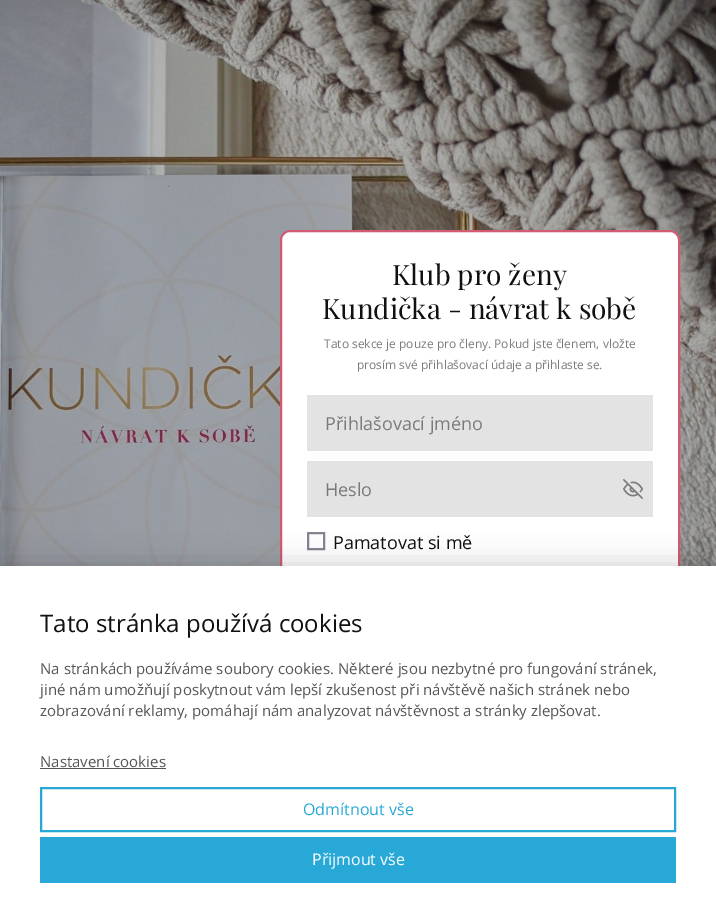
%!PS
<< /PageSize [716 923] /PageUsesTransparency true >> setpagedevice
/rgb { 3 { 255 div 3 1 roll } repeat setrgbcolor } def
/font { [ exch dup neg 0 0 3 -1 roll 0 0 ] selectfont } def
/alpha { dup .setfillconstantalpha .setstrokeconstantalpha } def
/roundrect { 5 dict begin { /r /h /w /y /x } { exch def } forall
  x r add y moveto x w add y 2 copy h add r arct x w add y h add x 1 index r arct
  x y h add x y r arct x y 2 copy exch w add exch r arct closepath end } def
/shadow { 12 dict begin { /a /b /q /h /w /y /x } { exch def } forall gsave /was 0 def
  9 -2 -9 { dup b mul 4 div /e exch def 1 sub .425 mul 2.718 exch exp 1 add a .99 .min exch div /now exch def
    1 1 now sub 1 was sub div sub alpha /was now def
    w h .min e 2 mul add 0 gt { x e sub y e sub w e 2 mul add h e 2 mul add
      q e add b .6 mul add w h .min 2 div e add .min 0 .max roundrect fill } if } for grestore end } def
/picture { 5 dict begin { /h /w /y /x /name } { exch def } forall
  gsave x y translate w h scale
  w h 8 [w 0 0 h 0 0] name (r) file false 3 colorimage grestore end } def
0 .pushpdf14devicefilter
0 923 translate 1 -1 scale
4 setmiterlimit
255 255 255 rgb
0 0 716 923 rectfill
(img/1.rgb) 0 0 716 566 picture
281 231 398 461 9 roundrect gsave fill grestore
210 91 115 rgb
2 setlinewidth
stroke
227 227 227 rgb
307 395 346 56 rectfill
307 461 346 56 rectfill
(img/2.rgb) 623 479 20 20 picture
132 132 146 rgb
308 533 16 16 rectstroke
0 0 0 rgb
0 566 716 357 0 15 0.2 shadow
255 255 255 rgb
0 566 716 357 rectfill
85 85 85 rgb
40 768 126 1 rectfill
39 168 215 rgb
41 788 634 43 rectstroke
40 837 636 46 rectfill
/PlayfairDisplay-Regular 28 font
17 17 17 rgb
392 285 moveto (Klub pro ženy) show
322 319 moveto (Kundička - návrat k sobě) show
/OpenSans-Regular 12 font
122 122 122 rgb
324 348 moveto (Tato sekce je pouze pro členy. Pokud jste členem, vložte) show
357 369 moveto (prosím své přihlašovací údaje a přihlaste se.) show
/OpenSans-Regular 18 font
325 430 moveto (Přihlašovací jméno) show
325 496 moveto (Heslo) show
17 17 17 rgb
333 549 moveto (Pamatovat si mě) show
/OpenSans-Regular 24 font
40 632 moveto (Tato stránka používá cookies) show
/OpenSans-Regular 15 font
85 85 85 rgb
[
  [(Na stránkách používáme soubory cookies. Některé jsou nezbytné pro fungování stránek,) 40 674]
  [(jiné nám umožňují poskytnout vám lepší zkušenost při návštěvě našich stránek nebo) 40 695]
  [(zobrazování reklamy, pomáhají nám analyzovat návštěvnost a stránky zlepšovat.) 40 716]
  [(Nastavení cookies) 40 767]
] { aload pop moveto show } forall
/OpenSans-Regular 16 font
39 168 215 rgb
303 815 moveto (Odmítnout vše) show
255 255 255 rgb
312 865 moveto (Přijmout vše) show
.poppdf14devicefilter showpage
